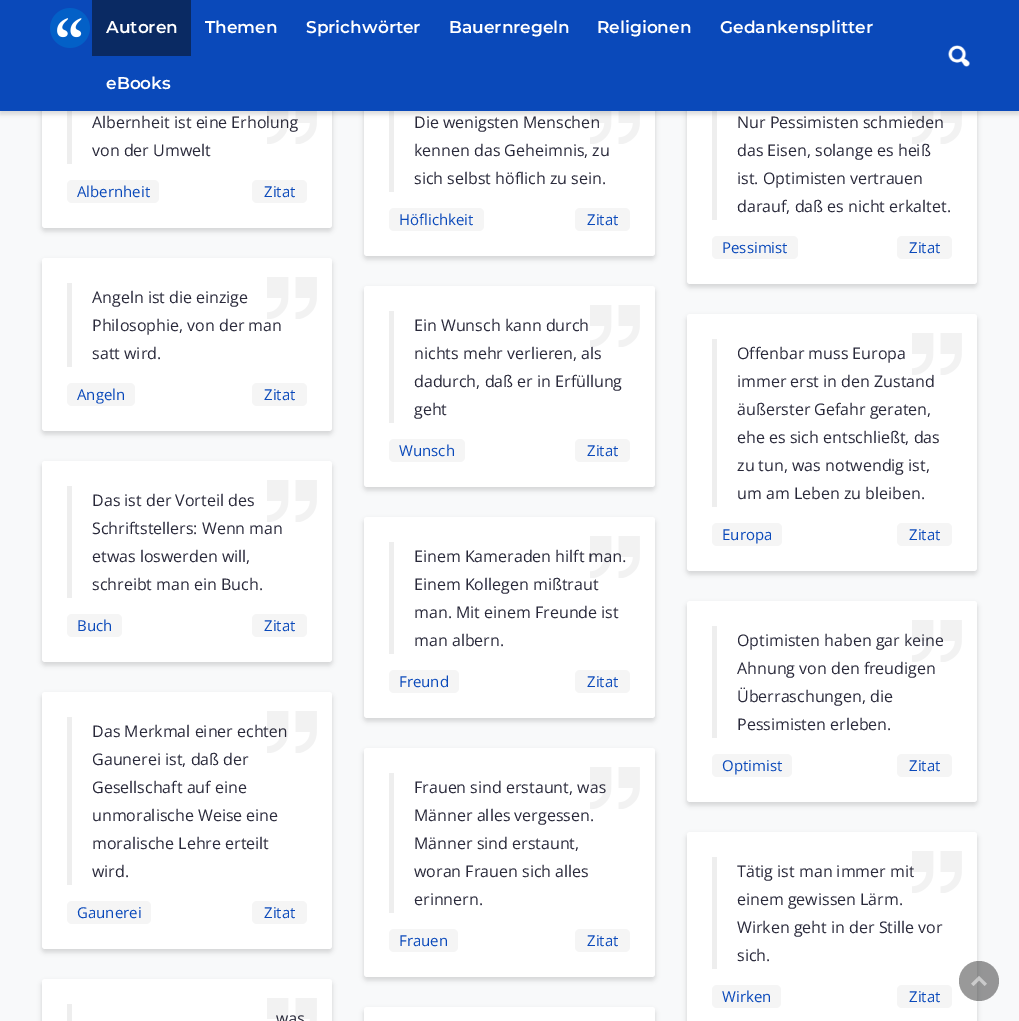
%!PS
<< /PageSize [1019 1021] /PageUsesTransparency true >> setpagedevice
/rgb { 3 { 255 div 3 1 roll } repeat setrgbcolor } def
/font { [ exch dup neg 0 0 3 -1 roll 0 0 ] selectfont } def
/alpha { dup .setfillconstantalpha .setstrokeconstantalpha } def
/circle { newpath 0 360 arc closepath } def
/roundrect { 5 dict begin { /r /h /w /y /x } { exch def } forall
  x r add y moveto x w add y 2 copy h add r arct x w add y h add x 1 index r arct
  x y h add x y r arct x y 2 copy exch w add exch r arct closepath end } def
/shadow { 12 dict begin { /a /b /q /h /w /y /x } { exch def } forall gsave /was 0 def
  9 -2 -9 { dup b mul 4 div /e exch def 1 sub .425 mul 2.718 exch exp 1 add a .99 .min exch div /now exch def
    1 1 now sub 1 was sub div sub alpha /was now def
    w h .min e 2 mul add 0 gt { x e sub y e sub w e 2 mul add h e 2 mul add
      q e add b .6 mul add w h .min 2 div e add .min 0 .max roundrect fill } if } for grestore end } def
/picture { 5 dict begin { /h /w /y /x /name } { exch def } forall
  gsave x y translate w h scale
  w h 8 [w 0 0 h 0 0] name (r) file false 3 colorimage grestore end } def
0 .pushpdf14devicefilter
0 1021 translate 1 -1 scale
4 setmiterlimit
248 249 250 rgb
0 0 1019 1021 rectfill
0 0 0 rgb
42 86 290 145 3 2.5 0.15 shadow
255 255 255 rgb
42 83 290 145 3 roundrect fill
238 238 238 rgb
67 108 5 56 rectfill
245 245 245 rgb
67 180 92 23 5 roundrect fill
252 180 55 23 5 roundrect fill
0 0 0 rgb
364 86 291 173 3 2.5 0.15 shadow
255 255 255 rgb
364 83 291 173 3 roundrect fill
238 238 238 rgb
389 108 5 84 rectfill
245 245 245 rgb
389 208 95 23 5 roundrect fill
575 208 55 23 5 roundrect fill
0 0 0 rgb
687 86 290 201 3 2.5 0.15 shadow
255 255 255 rgb
687 83 290 201 3 roundrect fill
238 238 238 rgb
712 108 5 112 rectfill
245 245 245 rgb
712 236 86 23 5 roundrect fill
897 236 55 23 5 roundrect fill
0 0 0 rgb
42 261 290 173 3 2.5 0.15 shadow
255 255 255 rgb
42 258 290 173 3 roundrect fill
238 238 238 rgb
67 283 5 84 rectfill
245 245 245 rgb
67 383 68 23 5 roundrect fill
252 383 55 23 5 roundrect fill
0 0 0 rgb
364 289 291 201 3 2.5 0.15 shadow
255 255 255 rgb
364 286 291 201 3 roundrect fill
238 238 238 rgb
389 311 5 112 rectfill
245 245 245 rgb
389 439 76 23 5 roundrect fill
575 439 55 23 5 roundrect fill
0 0 0 rgb
687 317 290 257 3 2.5 0.15 shadow
255 255 255 rgb
687 314 290 257 3 roundrect fill
238 238 238 rgb
712 339 5 168 rectfill
245 245 245 rgb
712 523 70 23 5 roundrect fill
897 523 55 23 5 roundrect fill
0 0 0 rgb
42 464 290 201 3 2.5 0.15 shadow
255 255 255 rgb
42 461 290 201 3 roundrect fill
238 238 238 rgb
67 486 5 112 rectfill
245 245 245 rgb
67 614 55 23 5 roundrect fill
252 614 55 23 5 roundrect fill
0 0 0 rgb
364 520 291 201 3 2.5 0.15 shadow
255 255 255 rgb
364 517 291 201 3 roundrect fill
238 238 238 rgb
389 542 5 112 rectfill
245 245 245 rgb
389 670 70 23 5 roundrect fill
575 670 55 23 5 roundrect fill
0 0 0 rgb
687 604 290 201 3 2.5 0.15 shadow
255 255 255 rgb
687 601 290 201 3 roundrect fill
238 238 238 rgb
712 626 5 112 rectfill
245 245 245 rgb
712 754 80 23 5 roundrect fill
897 754 55 23 5 roundrect fill
0 0 0 rgb
42 695 290 257 3 2.5 0.15 shadow
255 255 255 rgb
42 692 290 257 3 roundrect fill
238 238 238 rgb
67 717 5 168 rectfill
245 245 245 rgb
67 901 84 23 5 roundrect fill
252 901 55 23 5 roundrect fill
0 0 0 rgb
364 751 291 229 3 2.5 0.15 shadow
255 255 255 rgb
364 748 291 229 3 roundrect fill
238 238 238 rgb
389 773 5 140 rectfill
245 245 245 rgb
389 929 69 23 5 roundrect fill
575 929 55 23 5 roundrect fill
0 0 0 rgb
687 835 290 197 3 2.5 0.15 shadow
255 255 255 rgb
687 832 290 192 3 roundrect fill
238 238 238 rgb
712 857 5 112 rectfill
245 245 245 rgb
712 985 69 23 5 roundrect fill
897 985 55 23 5 roundrect fill
0 0 0 rgb
42 982 290 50 3 2.5 0.15 shadow
255 255 255 rgb
42 979 290 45 3 roundrect fill
238 238 238 rgb
67 1004 5 17 rectfill
(img/14.rgb) 267 998 50 23 picture
0 0 0 rgb
364 1010 291 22 3 2.5 0.15 shadow
255 255 255 rgb
364 1007 291 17 3 roundrect fill
0.4 alpha
0 0 0 rgb
979 981 20 circle fill
1 alpha
(img/15.rgb) 971 976 16 10 picture
/OpenSans-Regular 16 font
41 41 58 rgb
92 128 moveto (Albernheit ist eine Erholung) show
(img/3.rgb) 267 111 50 33 picture
92 156 moveto (von der Umwelt) show
/OpenSans-Regular 15 font
10 73 186 rgb
77 197 moveto (Albernheit) show
264 197 moveto (Zitat) show
/OpenSans-Regular 16 font
41 41 58 rgb
414 128 moveto (Die wenigsten Menschen) show
414 156 moveto (kennen das Geheimnis, zu) show
(img/4.rgb) 590 111 50 33 picture
414 184 moveto (sich selbst höflich zu sein.) show
/OpenSans-Regular 15 font
10 73 186 rgb
399 225 moveto (Höflichkeit) show
587 225 moveto (Zitat) show
/OpenSans-Regular 16 font
41 41 58 rgb
737 128 moveto (Nur Pessimisten schmieden) show
737 156 moveto (das Eisen, solange es heiß) show
(img/5.rgb) 912 111 50 33 picture
0 0 0 rgb
0 3 1019 111 0 2.5 0.15 shadow
10 73 186 rgb
0 0 1019 111 rectfill
(img/1.rgb) 50 8 40 40 picture
/Montserrat-SemiBold 17 font
255 255 255 rgb
[
  [(eBooks) 106 89]
  [(Gedankensplitter) 720 33]
  [(Religionen) 597 33]
  [(Bauernregeln) 449 33]
  [(Sprichwörter) 306 33]
  [(Themen) 205 33]
] { aload pop moveto show } forall
10 42 99 rgb
92 0 99 56 rectfill
255 255 255 rgb
106 33 moveto (Autoren) show
(img/2.rgb) 948 45 22 22 picture
/OpenSans-Regular 16 font
41 41 58 rgb
737 184 moveto (ist. Optimisten vertrauen) show
737 212 moveto (darauf, daß es nicht erkaltet.) show
/OpenSans-Regular 15 font
10 73 186 rgb
722 253 moveto (Pessimist) show
909 253 moveto (Zitat) show
/OpenSans-Regular 16 font
41 41 58 rgb
92 303 moveto (Angeln ist die einzige) show
92 331 moveto (Philosophie, von der man) show
(img/6.rgb) 267 277 50 42 picture
92 359 moveto (satt wird.) show
/OpenSans-Regular 15 font
10 73 186 rgb
77 400 moveto (Angeln) show
264 400 moveto (Zitat) show
/OpenSans-Regular 16 font
41 41 58 rgb
414 331 moveto (Ein Wunsch kann durch) show
414 359 moveto (nichts mehr verlieren, als) show
(img/7.rgb) 590 305 50 42 picture
414 387 moveto (dadurch, daß er in Erfüllung) show
414 415 moveto (geht) show
/OpenSans-Regular 15 font
10 73 186 rgb
399 456 moveto (Wunsch) show
587 456 moveto (Zitat) show
/OpenSans-Regular 16 font
41 41 58 rgb
737 359 moveto (Offenbar muss Europa) show
737 387 moveto (immer erst in den Zustand) show
(img/8.rgb) 912 333 50 42 picture
[
  [(äußerster Gefahr geraten,) 737 415]
  [(ehe es sich entschließt, das) 737 443]
  [(zu tun, was notwendig ist,) 737 471]
  [(um am Leben zu bleiben.) 737 499]
] { aload pop moveto show } forall
/OpenSans-Regular 15 font
10 73 186 rgb
722 540 moveto (Europa) show
909 540 moveto (Zitat) show
/OpenSans-Regular 16 font
41 41 58 rgb
92 506 moveto (Das ist der Vorteil des) show
92 534 moveto (Schriftstellers: Wenn man) show
(img/6.rgb) 267 480 50 42 picture
92 562 moveto (etwas loswerden will,) show
92 590 moveto (schreibt man ein Buch.) show
/OpenSans-Regular 15 font
10 73 186 rgb
77 631 moveto (Buch) show
264 631 moveto (Zitat) show
/OpenSans-Regular 16 font
41 41 58 rgb
414 562 moveto (Einem Kameraden hilft man.) show
414 590 moveto (Einem Kollegen mißtraut) show
(img/9.rgb) 590 536 50 42 picture
414 618 moveto (man. Mit einem Freunde ist) show
414 646 moveto (man albern.) show
/OpenSans-Regular 15 font
10 73 186 rgb
399 687 moveto (Freund) show
587 687 moveto (Zitat) show
/OpenSans-Regular 16 font
41 41 58 rgb
737 646 moveto (Optimisten haben gar keine) show
737 674 moveto (Ahnung von den freudigen) show
(img/10.rgb) 912 620 50 42 picture
737 702 moveto (Überraschungen, die) show
737 730 moveto (Pessimisten erleben.) show
/OpenSans-Regular 15 font
10 73 186 rgb
722 771 moveto (Optimist) show
909 771 moveto (Zitat) show
/OpenSans-Regular 16 font
41 41 58 rgb
92 737 moveto (Das Merkmal einer echten) show
(img/11.rgb) 267 711 50 42 picture
[
  [(Gaunerei ist, daß der) 92 765]
  [(Gesellschaft auf eine) 92 793]
  [(unmoralische Weise eine) 92 821]
  [(moralische Lehre erteilt) 92 849]
  [(wird.) 92 877]
] { aload pop moveto show } forall
/OpenSans-Regular 15 font
10 73 186 rgb
77 918 moveto (Gaunerei) show
264 918 moveto (Zitat) show
/OpenSans-Regular 16 font
41 41 58 rgb
414 793 moveto (Frauen sind erstaunt, was) show
414 821 moveto (Männer alles vergessen.) show
(img/12.rgb) 590 767 50 42 picture
[
  [(Männer sind erstaunt,) 414 849]
  [(woran Frauen sich alles) 414 877]
  [(erinnern.) 414 905]
] { aload pop moveto show } forall
/OpenSans-Regular 15 font
10 73 186 rgb
399 946 moveto (Frauen) show
587 946 moveto (Zitat) show
/OpenSans-Regular 16 font
41 41 58 rgb
737 877 moveto (Tätig ist man immer mit) show
(img/13.rgb) 912 851 50 42 picture
[
  [(einem gewissen Lärm.) 737 905]
  [(Wirken geht in der Stille vor) 737 933]
  [(sich.) 737 961]
] { aload pop moveto show } forall
/OpenSans-Regular 15 font
10 73 186 rgb
722 1002 moveto (Wirken) show
909 1002 moveto (Zitat) show
.poppdf14devicefilter showpage
